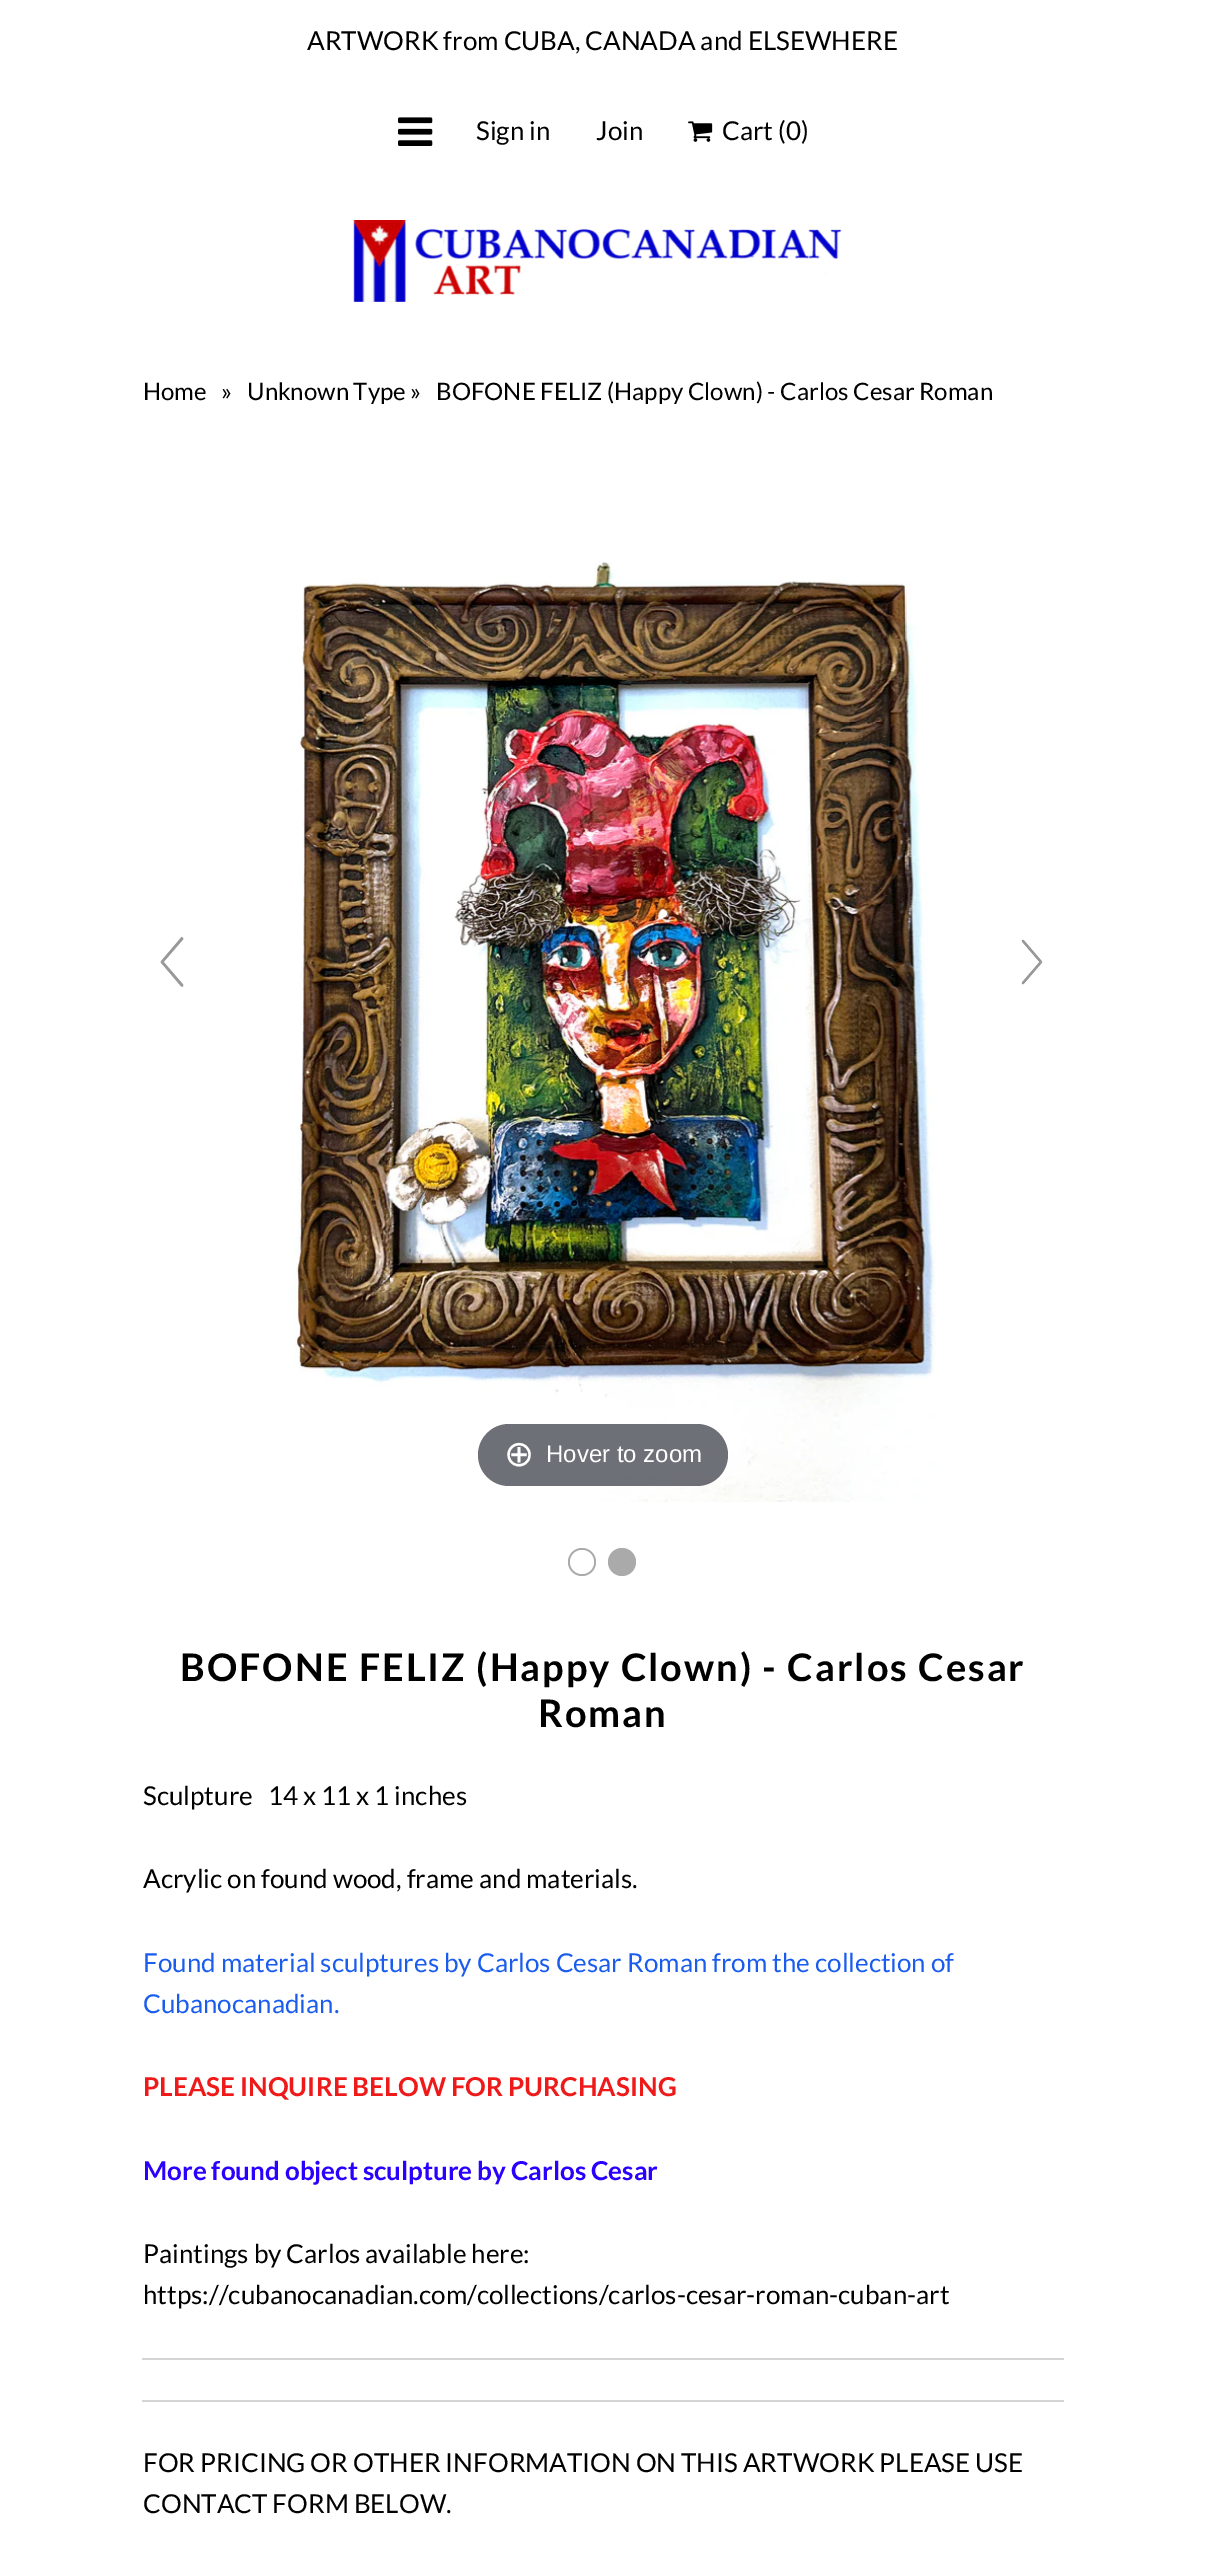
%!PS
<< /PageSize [1206 2567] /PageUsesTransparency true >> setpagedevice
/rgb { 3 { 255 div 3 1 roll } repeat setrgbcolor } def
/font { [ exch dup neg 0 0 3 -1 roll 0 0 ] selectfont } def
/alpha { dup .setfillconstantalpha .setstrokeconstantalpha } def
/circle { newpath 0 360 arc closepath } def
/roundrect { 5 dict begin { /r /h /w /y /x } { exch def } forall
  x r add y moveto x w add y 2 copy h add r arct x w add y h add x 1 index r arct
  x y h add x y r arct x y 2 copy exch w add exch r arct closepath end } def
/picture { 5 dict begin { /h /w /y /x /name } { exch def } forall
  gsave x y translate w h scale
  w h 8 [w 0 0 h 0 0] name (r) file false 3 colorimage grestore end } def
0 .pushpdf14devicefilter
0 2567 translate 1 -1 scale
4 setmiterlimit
255 255 255 rgb
0 0 1206 2567 rectfill
(img/1.rgb) 398 117 35 29 picture
(img/2.rgb) 688 121 25 21 picture
(img/3.rgb) 353 220 489 82 picture
(img/4.rgb) 160 936 24 51 picture
(img/5.rgb) 1021 939 22 46 picture
(img/6.rgb) 294 562 642 940 picture
0.7 alpha
49 51 61 rgb
478 1424 250 62 31 roundrect fill
1 alpha
170 170 170 rgb
582 1562 14 circle fill
255 255 255 rgb
582 1562 12 circle fill
170 170 170 rgb
622 1562 14 circle fill
213 213 213 rgb
142 2358 922 2 rectfill
142 2400 922 2 rectfill
/Lato-Regular 26 font
0 0 0 rgb
[
  [(ARTWORK from CUBA, CANADA and ELSEWHERE) 307 50]
  [(Sign in) 476 140]
  [(Join) 596 140]
  [(Cart \(0\)) 722 140]
] { aload pop moveto show } forall
/Lato-Regular 24 font
[
  [(Home) 143 400]
  [(») 221 400]
  [(Unknown Type ») 247 400]
  [(BOFONE FELIZ \(Happy Clown\) - Carlos Cesar Roman) 436 400]
] { aload pop moveto show } forall
/DejaVuSans-Regular 36 font
255 255 255 rgb
504 1466 moveto (⊕) show
/LiberationSans-Regular 24 font
546 1462 moveto (Hover to zoom) show
/Lato-Bold 38 font
0 0 0 rgb
180 1681 moveto 2 0 (BOFONE FELIZ \(Happy Clown\) - Carlos Cesar) ashow
538 1727 moveto 2 0 (Roman) ashow
/Lato-Regular 26 font
143 1805 moveto (Sculpture   14 x 11 x 1 inches) show
143 1888 moveto (Acrylic on found wood, frame and materials.) show
26 92 238 rgb
143 1972 moveto (Found material sculptures by Carlos Cesar Roman from the collection of) show
143 2013 moveto (Cubanocanadian.) show
/Lato-Bold 26 font
238 26 26 rgb
143 2096 moveto (PLEASE INQUIRE BELOW FOR PURCHASING) show
43 0 255 rgb
143 2180 moveto (More found object sculpture by Carlos Cesar) show
/Lato-Regular 26 font
0 0 0 rgb
[
  [(Paintings by Carlos available here:) 143 2263]
  [(https://cubanocanadian.com/collections/carlos-cesar-roman-cuban-art) 143 2304]
  [(FOR PRICING OR OTHER INFORMATION ON THIS ARTWORK PLEASE USE) 143 2472]
  [(CONTACT FORM BELOW.) 143 2513]
] { aload pop moveto show } forall
.poppdf14devicefilter showpage
